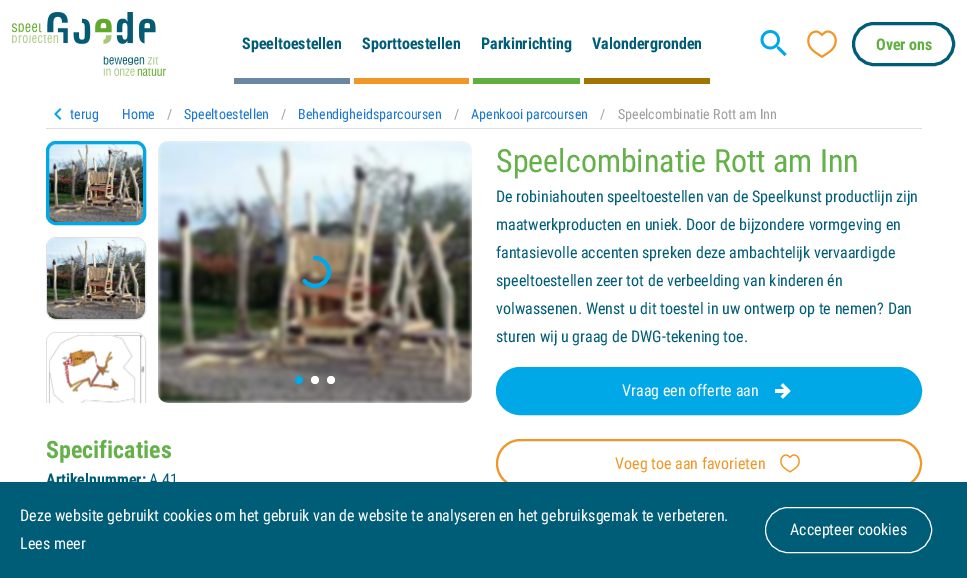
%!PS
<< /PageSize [967 578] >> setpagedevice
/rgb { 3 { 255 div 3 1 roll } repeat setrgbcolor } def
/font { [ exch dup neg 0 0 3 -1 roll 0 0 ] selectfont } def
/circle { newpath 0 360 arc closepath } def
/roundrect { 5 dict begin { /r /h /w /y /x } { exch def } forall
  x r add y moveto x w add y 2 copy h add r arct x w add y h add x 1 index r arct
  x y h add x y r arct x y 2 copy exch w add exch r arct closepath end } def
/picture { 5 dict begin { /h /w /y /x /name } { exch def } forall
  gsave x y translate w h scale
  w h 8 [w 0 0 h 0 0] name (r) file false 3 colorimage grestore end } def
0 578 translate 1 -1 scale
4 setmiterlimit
255 255 255 rgb
0 0 967 578 rectfill
(img/1.rgb) 12 12 154 64 picture
[
  [234 78 116 6 106 136 163]
  [354 78 115 6 241 151 39]
  [473 78 107 6 96 175 64]
  [584 78 126 6 162 117 0]
] { aload pop rgb rectfill } forall
(img/2.rgb) 760 30 27 27 picture
(img/3.rgb) 807 30 30 28 picture
0 93 119 rgb
3 setlinewidth
853.5 23.5 100 41 20.5 roundrect stroke
(img/4.rgb) 54 108 8 12 picture
224 224 224 rgb
46 128 876 1 rectfill
1 setlinewidth
46.5 141.5 99 83 9.5 roundrect stroke
(img/5.rgb) 49 144 94 78 picture
0 168 231 rgb
3 setlinewidth
47.5 142.5 97 81 8.5 roundrect stroke
224 224 224 rgb
1 setlinewidth
46.5 237.5 99 82 9.5 roundrect stroke
(img/6.rgb) 47 238 98 81 picture
gsave
34 141 148 262 rectclip
46.5 332.5 99 83 9.5 roundrect stroke
grestore
(img/7.rgb) 47 333 98 70 picture
238 238 238 rgb
158 141 314 262 10 roundrect fill
(img/8.rgb) 158 141 314 262 picture
(img/9.rgb) 158 141 314 262 picture
0 168 231 rgb
4 setlinewidth
1 setlinecap
315 258 moveto 322.5 258 329 264.5 329 272 curveto 329 279.5 322.5 286 315 286 curveto 311 286 307 284 304.5 281 curveto stroke
299 380 4 circle fill
255 255 255 rgb
315 380 4 circle fill
331 380 4 circle fill
0 168 231 rgb
497 368 424 46 23 roundrect gsave fill grestore
2 setlinewidth
0 setlinecap
stroke
(img/10.rgb) 775 383 16 16 picture
241 151 39 rgb
497 440 424 47 23.5 roundrect stroke
(img/11.rgb) 780 454 20 19 picture
0 93 119 rgb
0 482 967 96 rectfill
255 255 255 rgb
1 setlinewidth
765.5 507.5 166 45 22.5 roundrect stroke
/RobotoCondensed-Bold 16 font
0 93 119 rgb
[
  [(Speeltoestellen) 242 49]
  [(Sporttoestellen) 362 49]
  [(Parkinrichting) 481 49]
  [(Valondergronden) 592 49]
] { aload pop moveto show } forall
96 175 64 rgb
876 50 moveto (Over ons) show
/RobotoCondensed-Regular 14 font
25 118 210 rgb
70 119 moveto (terug) show
122 119 moveto (Home) show
158 158 158 rgb
167 119 moveto (/) show
25 118 210 rgb
184 119 moveto (Speeltoestellen) show
158 158 158 rgb
281 119 moveto (/) show
25 118 210 rgb
298 119 moveto (Behendigheidsparcoursen) show
158 158 158 rgb
454 119 moveto (/) show
25 118 210 rgb
471 119 moveto (Apenkooi parcoursen) show
158 158 158 rgb
600 119 moveto (/) show
618 119 moveto (Speelcombinatie Rott am Inn) show
/RobotoCondensed-Bold 24 font
100 177 73 rgb
46 458 moveto (Specificaties) show
/RobotoCondensed-Bold 16 font
0 93 119 rgb
46 485 moveto (Artikelnummer:) show
/RobotoCondensed-Regular 16 font
149 485 moveto (A 41) show
/RobotoCondensed-Regular 32 font
100 177 73 rgb
496 172 moveto (Speelcombinatie Rott am Inn) show
/RobotoCondensed-Regular 16 font
0 93 119 rgb
[
  [(De robiniahouten speeltoestellen van de Speelkunst productlijn zijn) 496 202]
  [(maatwerkproducten en uniek. Door de bijzondere vormgeving en) 496 230]
  [(fantasievolle accenten spreken deze ambachtelijk vervaardigde) 496 258]
  [(speeltoestellen zeer tot de verbeelding van kinderen én) 496 286]
  [(volwassenen. Wenst u dit toestel in uw ontwerp op te nemen? Dan) 496 314]
  [(sturen wij u graag de DWG-tekening toe.) 496 342]
] { aload pop moveto show } forall
255 255 255 rgb
622 396 moveto (Vraag een offerte aan) show
241 151 39 rgb
615 469 moveto (Voeg toe aan favorieten) show
255 255 255 rgb
[
  [(Deze website gebruikt cookies om het gebruik van de website te analyseren en het gebruiksgemak te verbeteren.) 20 521]
  [(Lees meer) 20 549]
  [(Accepteer cookies) 790 535]
] { aload pop moveto show } forall
showpage
